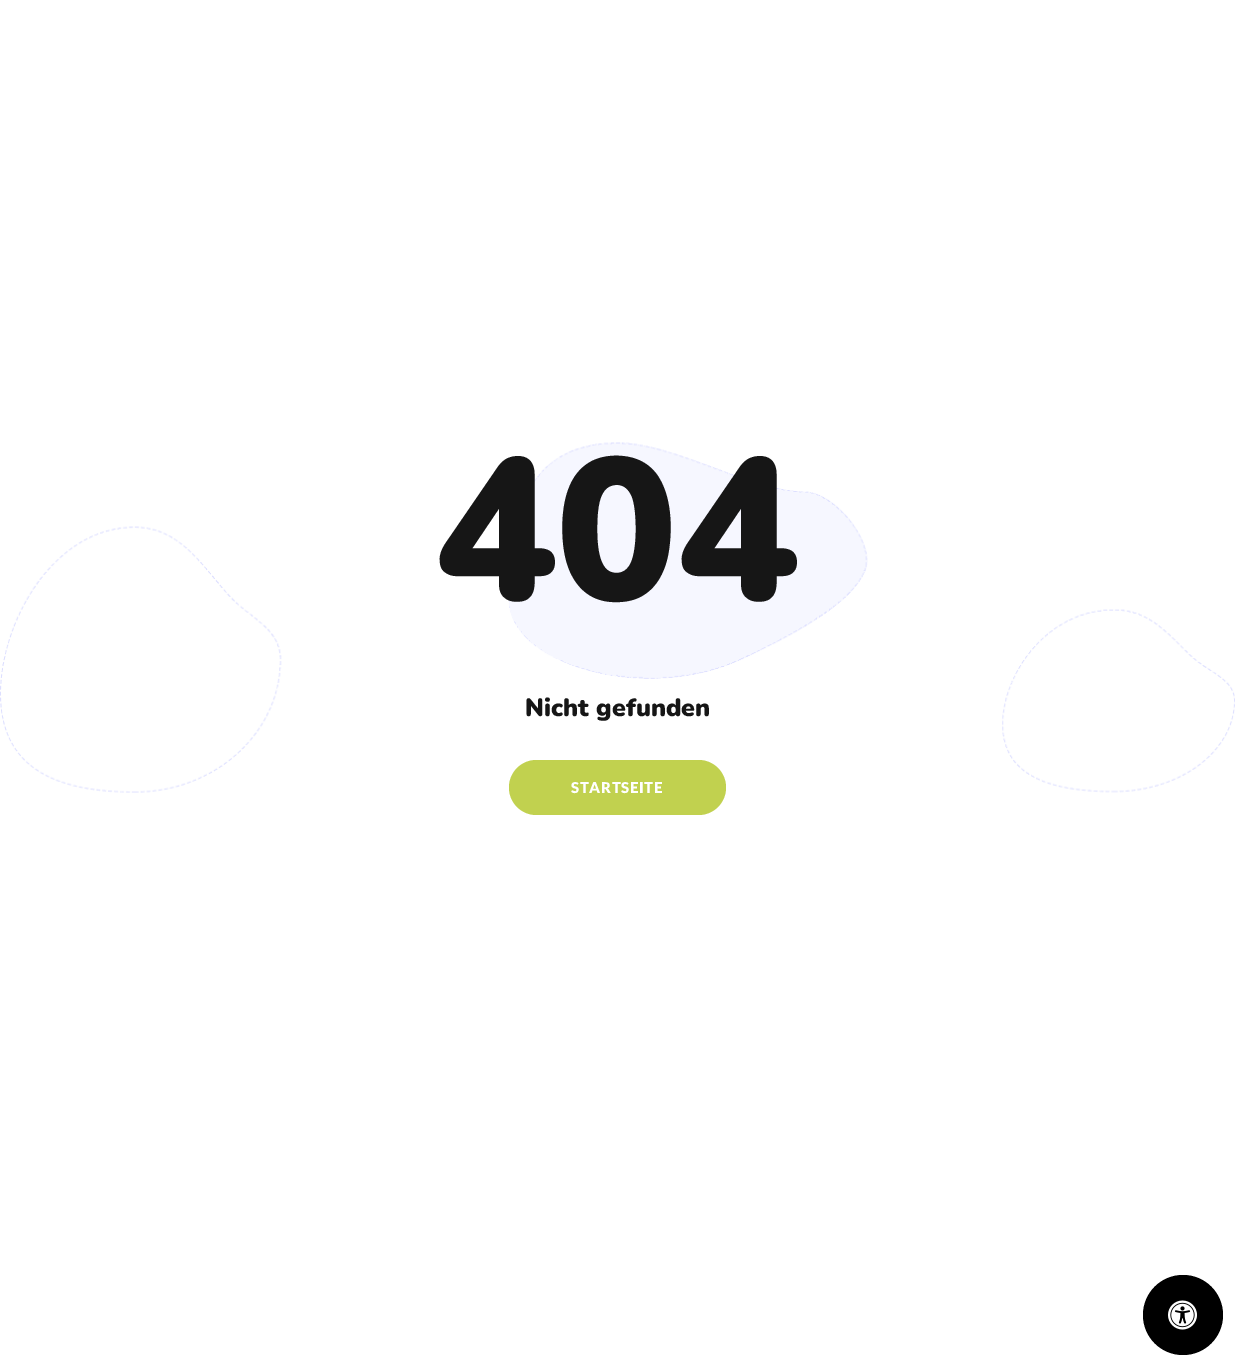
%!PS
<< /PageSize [1235 1367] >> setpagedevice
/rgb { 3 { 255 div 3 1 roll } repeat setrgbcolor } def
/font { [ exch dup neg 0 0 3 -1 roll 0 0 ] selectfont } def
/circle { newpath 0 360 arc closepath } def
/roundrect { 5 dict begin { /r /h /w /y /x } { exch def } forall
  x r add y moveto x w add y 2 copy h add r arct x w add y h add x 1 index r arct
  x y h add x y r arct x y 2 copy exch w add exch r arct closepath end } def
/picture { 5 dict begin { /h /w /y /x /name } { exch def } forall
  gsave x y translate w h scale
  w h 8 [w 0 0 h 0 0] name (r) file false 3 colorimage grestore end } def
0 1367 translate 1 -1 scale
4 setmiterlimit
255 255 255 rgb
0 0 1235 1367 rectfill
(img/1.rgb) 0 442 1235 351 picture
193 209 79 rgb
509 760 217 55 27.5 roundrect fill
0 0 0 rgb
1183 1315 40 circle fill
(img/2.rgb) 1168 1300 29 30 picture
/Nunito-Black 202 font
22 22 22 rgb
435 600 moveto (404) show
/Nunito-Black 25 font
525 716 moveto (Nicht gefunden) show
/Lato-Black 15 font
255 255 255 rgb
571 793 moveto 0.6 0 (STARTSEITE) ashow
showpage
